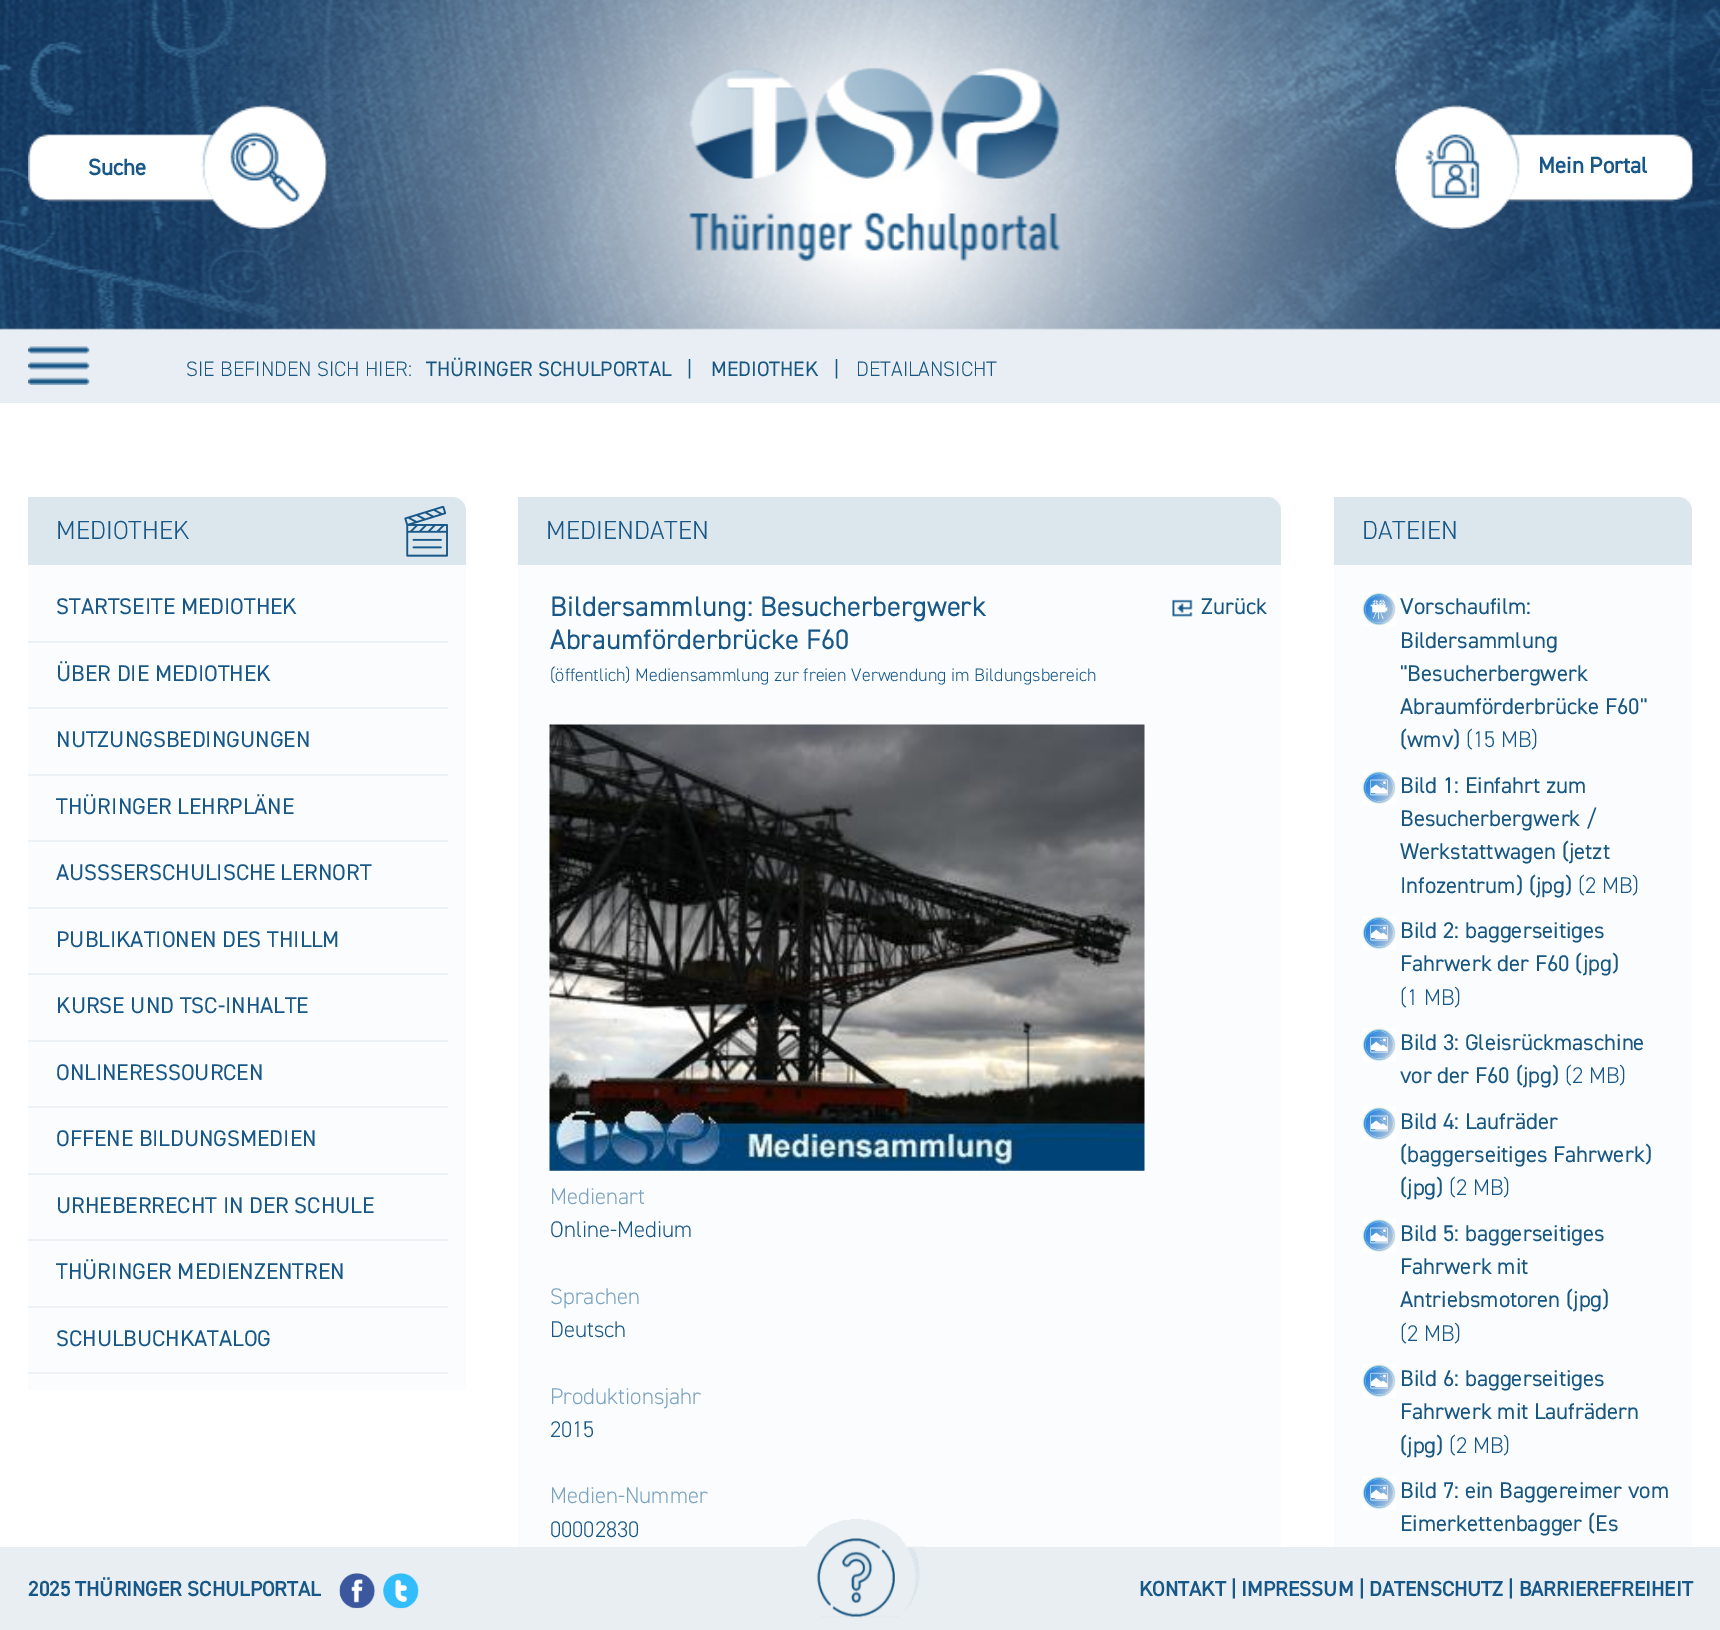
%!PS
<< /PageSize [1720 1630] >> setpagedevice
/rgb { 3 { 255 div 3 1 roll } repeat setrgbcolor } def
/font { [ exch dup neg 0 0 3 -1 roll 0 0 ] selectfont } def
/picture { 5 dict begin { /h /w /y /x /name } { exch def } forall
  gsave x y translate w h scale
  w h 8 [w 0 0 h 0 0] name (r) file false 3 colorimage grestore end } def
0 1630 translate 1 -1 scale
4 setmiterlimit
255 255 255 rgb
0 0 1720 1630 rectfill
232 238 243 rgb
0 328 1720 75 rectfill
(img/1.rgb) 0 0 1720 330 picture
(img/2.rgb) 28 105 299 124 picture
(img/3.rgb) 1395 105 298 124 picture
(img/4.rgb) 28 346 62 39 picture
250 252 253 rgb
28 497 438 893 rectfill
220 230 237 rgb
28 497 moveto 452 497 lineto 459.5 497 466 503.5 466 511 curveto 466 565 lineto 28 565 lineto closepath fill
(img/5.rgb) 404 506 44 51 picture
[
  [28 641 420 2 235 241 245]
  [28 707 420 2 235 241 245]
  [28 774 420 2 235 241 245]
  [28 840 420 2 235 241 245]
  [28 907 420 2 235 241 245]
  [28 973 420 2 235 241 245]
  [28 1040 420 2 235 241 245]
  [28 1106 420 2 235 241 245]
  [28 1173 420 2 235 241 245]
  [28 1239 420 2 235 241 245]
  [28 1306 420 2 235 241 245]
  [28 1372 420 2 235 241 245]
  [518 497 763 1050 250 252 253]
] { aload pop rgb rectfill } forall
220 230 237 rgb
518 497 moveto 1267 497 lineto 1274.5 497 1281 503.5 1281 511 curveto 1281 565 lineto 518 565 lineto closepath fill
(img/6.rgb) 1172 599 21 18 picture
(img/7.rgb) 549 724 596 447 picture
250 252 253 rgb
1334 497 358 1050 rectfill
220 230 237 rgb
1334 497 moveto 1678 497 lineto 1685.5 497 1692 503.5 1692 511 curveto 1692 565 lineto 1334 565 lineto closepath fill
(img/8.rgb) 1362 592 34 34 picture
(img/9.rgb) 1362 770 34 35 picture
(img/10.rgb) 1362 916 34 34 picture
(img/10.rgb) 1362 1028 34 34 picture
(img/9.rgb) 1362 1106 34 35 picture
(img/9.rgb) 1362 1218 34 35 picture
(img/10.rgb) 1362 1364 34 34 picture
(img/10.rgb) 1362 1476 34 34 picture
232 238 242 rgb
0 1547 1720 83 rectfill
(img/11.rgb) 795 1519 131 99 picture
(img/12.rgb) 339 1573 36 36 picture
(img/13.rgb) 383 1573 36 36 picture
/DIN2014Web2-Bold 22.75 font
24 88 136 rgb
88 175 moveto (Suche) show
1538 173 moveto (Mein Portal) show
/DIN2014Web-Light 21 font
23 87 129 rgb
186 376 moveto (SIE BEFINDEN SICH HIER:) show
/DIN2014Web-Regular 21 font
[
  [(THÜRINGER SCHULPORTAL) 426 376]
  [(|) 687 376]
  [(MEDIOTHEK) 711 376]
  [(|) 834 376]
] { aload pop moveto show } forall
/DIN2014Web-Light 21 font
856 376 moveto (DETAILANSICHT) show
/DIN2014Web-Light 26.25 font
24 88 136 rgb
56 539 moveto (MEDIOTHEK) show
/DIN2014Web-Regular 22.75 font
[
  [(STARTSEITE MEDIOTHEK) 56 614]
  [(ÜBER DIE MEDIOTHEK) 56 681]
  [(NUTZUNGSBEDINGUNGEN) 56 747]
  [(THÜRINGER LEHRPLÄNE) 56 814]
  [(AUSS) 56 880]
] { aload pop moveto show } forall
110 880 moveto -1 0 32 (SERSCHULISCHE LERNORT) widthshow
[
  [(PUBLIKATIONEN DES THILLM) 56 947]
  [(KURSE UND TSC-INHALTE) 56 1013]
  [(ONLINERESSOURCEN) 56 1080]
  [(OFFENE BILDUNGSMEDIEN) 56 1146]
  [(URHEBERRECHT IN DER SCHULE) 56 1213]
  [(THÜRINGER MEDIENZENTREN) 56 1279]
  [(SCHULBUCHKATALOG) 56 1346]
] { aload pop moveto show } forall
/DIN2014Web-Light 26.25 font
546 539 moveto (MEDIENDATEN) show
/DIN2014Web-Bold 27.25 font
550 616 moveto 0.7 0 (Bildersammlung: Besucherbergwerk) ashow
550 649 moveto 0.7 0 (Abraumförderbrücke F60) ashow
/DIN2014Web-Light 18.2 font
550 681 moveto (\(öffentlich\) Mediensammlung zur freien Verwendung im Bildungsbereich) show
/DIN2014Web-Regular 22.75 font
23 87 129 rgb
1201 614 moveto (Zurück) show
/DIN2014Web-Light 22.75 font
123 163 193 rgb
550 1204 moveto (Medienart) show
24 88 136 rgb
550 1237 moveto (Online-Medium) show
123 163 193 rgb
550 1304 moveto (Sprachen) show
24 88 136 rgb
550 1337 moveto (Deutsch) show
123 163 193 rgb
550 1404 moveto (Produktionsjahr) show
24 88 136 rgb
550 1437 moveto (2015) show
123 163 193 rgb
550 1503 moveto (Medien-Nummer) show
24 88 136 rgb
550 1537 moveto (00002830) show
/DIN2014Web-Light 26.25 font
1362 539 moveto (DATEIEN) show
/DIN2014Web-Regular 22.75 font
23 87 129 rgb
[
  [(Vorschaufilm:) 1400 614]
  [(Bildersammlung) 1400 648]
  [("Besucherbergwerk) 1400 681]
  [(Abraumförderbrücke F60") 1400 714]
  [(\(wmv\)) 1400 747]
] { aload pop moveto show } forall
/DIN2014Web-Light 22.75 font
24 88 136 rgb
1466 747 moveto (\(15 MB\)) show
/DIN2014Web-Regular 22.75 font
23 87 129 rgb
[
  [(Bild 1: Einfahrt zum) 1400 793]
  [(Besucherbergwerk /) 1400 826]
  [(Werkstattwagen \(jetzt) 1400 859]
  [(Infozentrum\) \(jpg\)) 1400 893]
] { aload pop moveto show } forall
/DIN2014Web-Light 22.75 font
24 88 136 rgb
1578 893 moveto (\(2 MB\)) show
/DIN2014Web-Regular 22.75 font
23 87 129 rgb
1400 938 moveto (Bild 2: baggerseitiges) show
1400 971 moveto (Fahrwerk der F60 \(jpg\)) show
/DIN2014Web-Light 22.75 font
24 88 136 rgb
1400 1005 moveto (\(1 MB\)) show
/DIN2014Web-Regular 22.75 font
23 87 129 rgb
1400 1050 moveto (Bild 3: Gleisrückmaschine) show
1400 1083 moveto (vor der F60 \(jpg\)) show
/DIN2014Web-Light 22.75 font
24 88 136 rgb
1565 1083 moveto (\(2 MB\)) show
/DIN2014Web-Regular 22.75 font
23 87 129 rgb
[
  [(Bild 4: Laufräder) 1400 1129]
  [(\(baggerseitiges Fahrwerk\)) 1400 1162]
  [(\(jpg\)) 1400 1195]
] { aload pop moveto show } forall
/DIN2014Web-Light 22.75 font
24 88 136 rgb
1449 1195 moveto (\(2 MB\)) show
/DIN2014Web-Regular 22.75 font
23 87 129 rgb
[
  [(Bild 5: baggerseitiges) 1400 1241]
  [(Fahrwerk mit) 1400 1274]
  [(Antriebsmotoren \(jpg\)) 1400 1307]
] { aload pop moveto show } forall
/DIN2014Web-Light 22.75 font
24 88 136 rgb
1400 1341 moveto (\(2 MB\)) show
/DIN2014Web-Regular 22.75 font
23 87 129 rgb
[
  [(Bild 6: baggerseitiges) 1400 1386]
  [(Fahrwerk mit Laufrädern) 1400 1419]
  [(\(jpg\)) 1400 1453]
] { aload pop moveto show } forall
/DIN2014Web-Light 22.75 font
24 88 136 rgb
1449 1453 moveto (\(2 MB\)) show
/DIN2014Web-Regular 22.75 font
23 87 129 rgb
1400 1498 moveto (Bild 7: ein Baggereimer vom) show
1400 1531 moveto (Eimerkettenbagger \(Es) show
/DIN2014Web2-Bold 21 font
24 88 136 rgb
28 1596 moveto (2025 THÜRINGER SCHULPORTAL) show
1139 1596 moveto (KONTAKT | IMPRESSUM | DATENSCHUTZ | BARRIEREFREIHEIT) show
showpage
